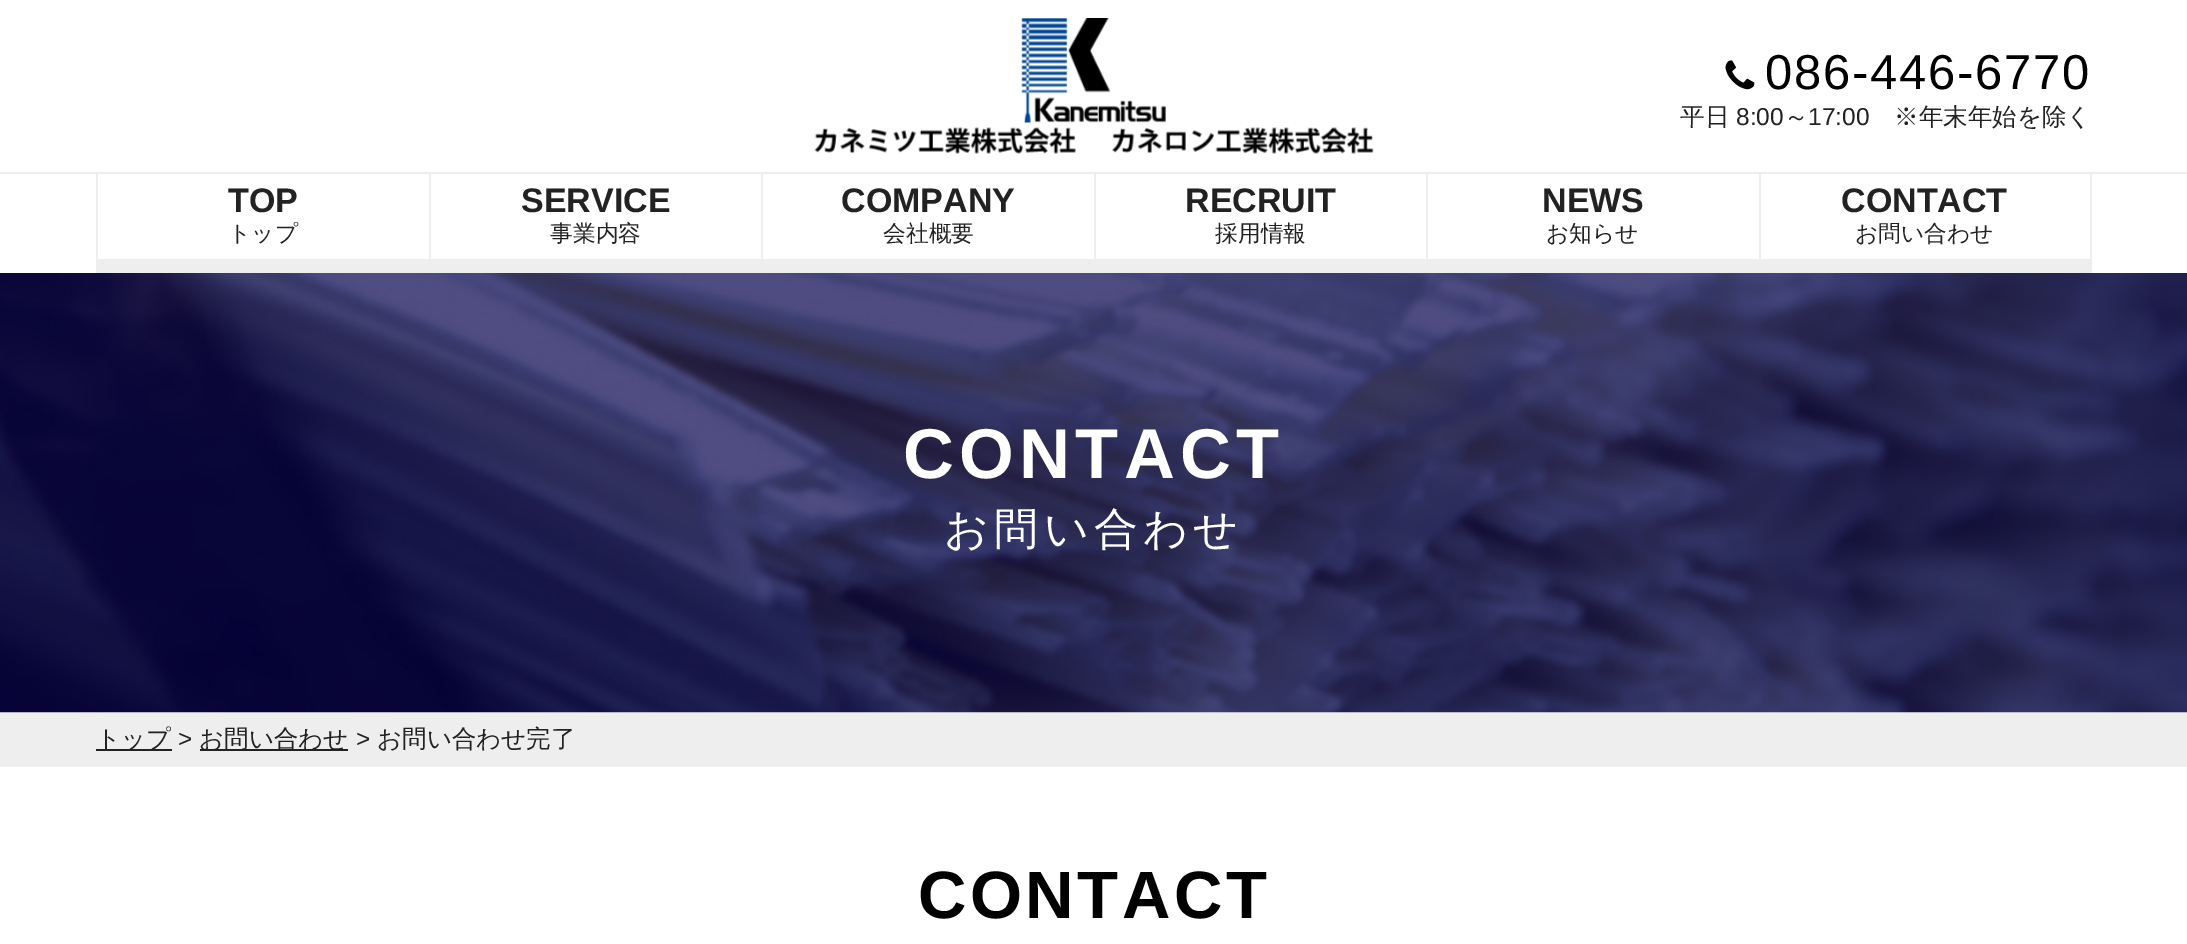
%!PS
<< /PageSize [2187 944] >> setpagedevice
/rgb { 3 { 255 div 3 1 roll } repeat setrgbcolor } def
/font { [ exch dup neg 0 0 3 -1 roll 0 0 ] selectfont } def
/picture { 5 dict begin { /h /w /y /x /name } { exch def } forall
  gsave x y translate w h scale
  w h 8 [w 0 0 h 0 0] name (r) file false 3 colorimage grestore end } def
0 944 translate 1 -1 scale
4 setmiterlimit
255 255 255 rgb
0 0 2187 944 rectfill
(img/1.rgb) 1021 18 145 105 picture
(img/2.rgb) 814 127 560 27 picture
(img/3.rgb) 1725 60 30 30 picture
[
  [0 172 2187 2 238 238 238]
  [96 173 2 100 238 238 238]
  [98 259 331 14 238 238 238]
  [429 173 2 100 238 238 238]
  [431 259 330 14 238 238 238]
  [761 173 2 100 238 238 238]
  [763 259 331 14 238 238 238]
  [1094 173 2 100 238 238 238]
  [1096 259 330 14 238 238 238]
  [1426 173 2 100 238 238 238]
  [1428 259 331 14 238 238 238]
  [2090 173 2 100 238 238 238]
  [1759 173 2 100 238 238 238]
  [1761 259 329 14 238 238 238]
  [0 712 2187 55 238 238 238]
] { aload pop rgb rectfill } forall
(img/4.rgb) 0 273 2187 440 picture
34 34 34 rgb
96 749 76 2 rectfill
200 749 148 2 rectfill
/LiberationSans-Regular 49 font
0 0 0 rgb
1765 89 moveto 1.75 0 (086-446-6770) ashow
/WenQuanYiZenHei-Medium 24.5 font
34 34 34 rgb
1680 125 moveto (平日) show
/LiberationSans-Regular 24.5 font
1736 125 moveto (8:00) show
/WenQuanYiZenHei-Medium 24.5 font
1784 125 moveto (～) show
/LiberationSans-Regular 24.5 font
1808 125 moveto (17:00) show
/WenQuanYiZenHei-Medium 24.5 font
1894 125 moveto (※年末年始を除く) show
/LiberationSans-Bold 34 font
228 212 moveto (TOP) show
/WenQuanYiZenHei-Medium 22.75 font
228 241 moveto (トップ) show
/LiberationSans-Bold 34 font
521 212 moveto (SERVICE) show
/WenQuanYiZenHei-Medium 22.75 font
550 241 moveto (事業内容) show
/LiberationSans-Bold 34 font
841 212 moveto (COMPANY) show
/WenQuanYiZenHei-Medium 22.75 font
883 241 moveto (会社概要) show
/LiberationSans-Bold 34 font
1185 212 moveto (RECRUIT) show
/WenQuanYiZenHei-Medium 22.75 font
1215 241 moveto (採用情報) show
/LiberationSans-Bold 34 font
1542 212 moveto (NEWS) show
/WenQuanYiZenHei-Medium 22.75 font
1546 241 moveto (お知らせ) show
/LiberationSans-Bold 34 font
1841 212 moveto (CONTACT) show
/WenQuanYiZenHei-Medium 22.75 font
1855 241 moveto (お問い合わせ) show
/LiberationSans-Bold 70.5 font
255 255 255 rgb
903 478 moveto 5.25 0 (CONTACT) ashow
/WenQuanYiZenHei-Medium 44 font
944 544 moveto 5.25 0 (お問い合わせ) ashow
/WenQuanYiZenHei-Medium 24.5 font
34 34 34 rgb
96 747 moveto (トップ) show
/LiberationSans-Regular 24.5 font
178 747 moveto (>) show
/WenQuanYiZenHei-Medium 24.5 font
199 747 moveto (お問い合わせ) show
/LiberationSans-Regular 24.5 font
356 747 moveto (>) show
/WenQuanYiZenHei-Medium 24.5 font
377 747 moveto (お問い合わせ完了) show
/LiberationSans-Bold 67 font
0 0 0 rgb
918 918 moveto 3.5 0 (CONTACT) ashow
showpage
